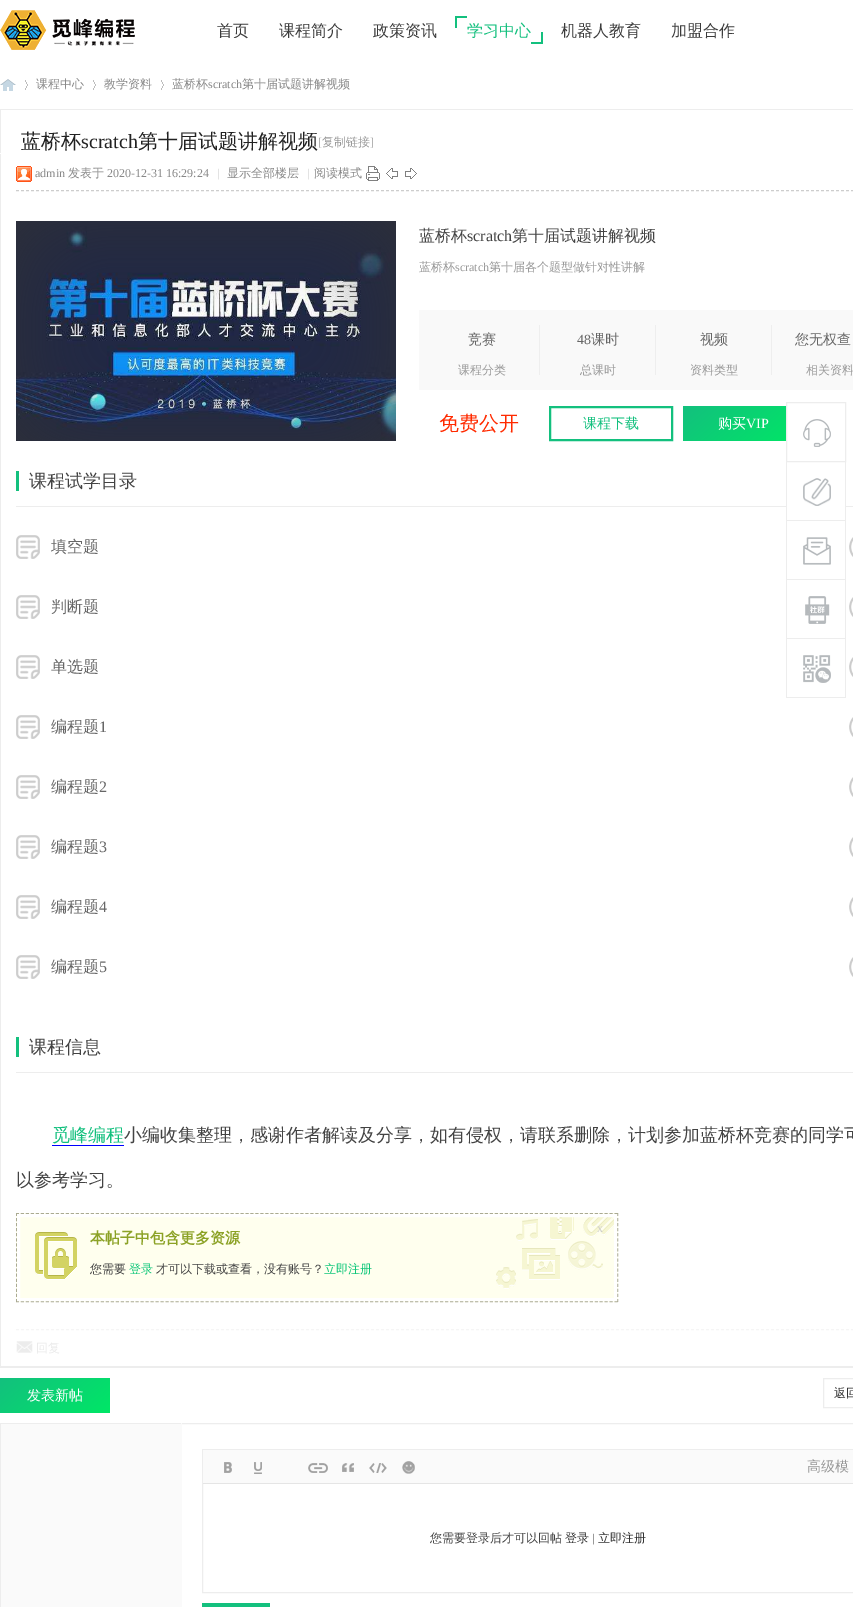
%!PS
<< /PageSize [853 1607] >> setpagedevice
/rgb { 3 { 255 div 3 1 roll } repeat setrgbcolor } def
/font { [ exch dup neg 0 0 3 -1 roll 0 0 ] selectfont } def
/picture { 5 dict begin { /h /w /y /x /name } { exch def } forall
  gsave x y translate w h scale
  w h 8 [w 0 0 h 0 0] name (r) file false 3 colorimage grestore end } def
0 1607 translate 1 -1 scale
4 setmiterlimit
255 255 255 rgb
0 0 853 1607 rectfill
(img/1.rgb) 0 10 135 40 picture
[
  [455 16 12 2 19 192 126]
  [455 16 2 12 19 192 126]
  [541 32 2 12 19 192 126]
  [531 42 12 2 19 192 126]
] { aload pop rgb rectfill } forall
237 237 237 rgb
786.5 402.5 59 59 rectstroke
(img/2.rgb) 803 419 28 28 picture
[
  [16 506 837 1 237 237 237]
  [787 506 58 1 255 255 255]
  [845 462 1 236 237 237 237]
  [786 520 60 1 237 237 237]
  [786 462 1 59 237 237 237]
] { aload pop rgb rectfill } forall
(img/3.rgb) 803 478 28 28 picture
786 579 60 1 rectfill
786 521 1 59 rectfill
(img/4.rgb) 803 537 28 28 picture
786 638 60 1 rectfill
786 580 1 59 rectfill
(img/5.rgb) 805 596 25 28 picture
786 697 60 1 rectfill
786 639 1 59 rectfill
(img/6.rgb) 803 655 28 28 picture
(img/7.rgb) 0 79 16 12 picture
(img/8.rgb) 25 80 3 10 picture
(img/8.rgb) 93 80 3 10 picture
(img/8.rgb) 161 80 3 10 picture
[
  [0 1366 853 2 237 237 237]
  [0 109 853 1 237 237 237]
  [0 109 1 44 237 237 237]
  [0 154 1 1213 237 237 237]
] { aload pop rgb rectfill } forall
205 205 205 rgb
[3 2] 0 setdash
16 190.5 moveto 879 190.5 lineto stroke
(img/9.rgb) 16 166 16 16 picture
(img/10.rgb) 366 166 14 15 picture
(img/11.rgb) 386 168 12 11 picture
(img/12.rgb) 405 168 12 11 picture
(img/13.rgb) 16 221 380 220 picture
(img/14.rgb) 16 221 380 220 picture
[
  [419 310 434 80 249 249 249]
  [539 325 1 50 238 238 238]
  [655 325 1 50 238 238 238]
  [771 325 1 50 238 238 238]
] { aload pop rgb rectfill } forall
19 192 126 rgb
2 setlinewidth
[] 0 setdash
550 407 122 33 rectstroke
gsave 683 406 moveto 786 406 lineto 786 441 lineto 683 441 lineto closepath clip newpath
<< /ShadingType 2 /ColorSpace /DeviceRGB /Coords [710 384 776 463] /Extend [true true] /Function << /FunctionType 2 /Domain [0 1] /C0 [0.075 0.753 0.494] /C1 [0 0.906 0.4] /N 1 >> >> shfill grestore
16 471 3 20 rectfill
(img/15.rgb) 16 535 24 24 picture
(img/16.rgb) 849 537 4 20 picture
(img/15.rgb) 16 595 24 24 picture
(img/16.rgb) 849 597 4 20 picture
(img/15.rgb) 16 655 24 24 picture
(img/16.rgb) 849 657 4 20 picture
(img/15.rgb) 16 715 24 24 picture
(img/16.rgb) 849 717 4 20 picture
(img/15.rgb) 16 775 24 24 picture
(img/16.rgb) 849 777 4 20 picture
(img/15.rgb) 16 835 24 24 picture
(img/16.rgb) 849 837 4 20 picture
(img/15.rgb) 16 895 24 24 picture
(img/16.rgb) 849 897 4 20 picture
(img/15.rgb) 16 955 24 24 picture
(img/16.rgb) 849 957 4 20 picture
[
  [16 1072 837 1 237 237 237]
  [16 1037 3 20 19 192 126]
  [52 1145 72 1 0 0 255]
  [16 1213 602 89 255 255 238]
] { aload pop rgb rectfill } forall
(img/17.rgb) 496 1217 118 72 picture
170 170 146 rgb
1 setlinewidth
[3 1.99] 0 setdash
16 1213.5 moveto 618 1213.5 lineto stroke
[3 2.06] 0 setdash
617.5 1213 moveto 617.5 1302 lineto stroke
[3 1.99] 0 setdash
16 1301.5 moveto 618 1301.5 lineto stroke
[3 2.06] 0 setdash
16.5 1213 moveto 16.5 1302 lineto stroke
(img/18.rgb) 35 1232 42 48 picture
255 255 255 rgb
3 setlinewidth
[] 0 setdash
18.5 1215.5 597 84 rectstroke
245 245 245 rgb
1 setlinewidth
[3 2] 0 setdash
16 1329.5 moveto 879 1329.5 lineto stroke
(img/19.rgb) 16 1341 17 12 picture
gsave 0 1378 moveto 110 1378 lineto 110 1413 lineto 0 1413 lineto closepath clip newpath
<< /ShadingType 2 /ColorSpace /DeviceRGB /Coords [24 1358 86 1433] /Extend [true true] /Function << /FunctionType 2 /Domain [0 1] /C0 [0.075 0.753 0.494] /C1 [0 0.906 0.4] /N 1 >> >> shfill grestore
237 237 237 rgb
[] 0 setdash
823.5 1378.5 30 29 rectstroke
0.5 1423.5 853 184 rectstroke
250 250 250 rgb
181 1423 1 1 rectfill
1 1424 181 183 rectfill
237 237 237 rgb
202.5 1449.5 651 143 rectstroke
250 250 250 rgb
203 1450 650 33 rectfill
229 229 229 rgb
203 1483 650 1 rectfill
(img/20.rgb) 224 1462 8 11 picture
(img/21.rgb) 254 1462 8 12 picture
(img/22.rgb) 308 1463 20 10 picture
(img/23.rgb) 342 1463 12 9 picture
(img/24.rgb) 369 1463 18 10 picture
(img/25.rgb) 402 1461 13 13 picture
19 192 126 rgb
202 1603 68 4 rectfill
/WenQuanYiZenHei-Medium 16 font
60 60 60 rgb
[
  [(首页) 217 36]
  [(课程简介) 279 36]
  [(政策资讯) 373 36]
] { aload pop moveto show } forall
19 192 126 rgb
467 36 moveto (学习中心) show
60 60 60 rgb
561 36 moveto (机器人教育) show
671 36 moveto (加盟合作) show
/WenQuanYiZenHei-Medium 12 font
136 136 136 rgb
[
  [(课程中心) 36 88]
  [(教学资料) 104 88]
  [(蓝桥杯) 172 88]
] { aload pop moveto show } forall
/LiberationSerif-Regular 12 font
208 88 moveto (scratch) show
/WenQuanYiZenHei-Medium 12 font
242 88 moveto (第十届试题讲解视频) show
/WenQuanYiZenHei-Medium 20 font
34 34 34 rgb
21 148 moveto (蓝桥杯) show
/LiberationSerif-Regular 20 font
81 148 moveto (scratch) show
/WenQuanYiZenHei-Medium 20 font
138 148 moveto (第十届试题讲解视频) show
/LiberationSerif-Regular 12 font
153 153 153 rgb
318 146 moveto ([) show
/WenQuanYiZenHei-Medium 12 font
322 146 moveto (复制链接) show
/LiberationSerif-Regular 12 font
370 146 moveto (]) show
136 136 136 rgb
35 177 moveto (admin) show
/WenQuanYiZenHei-Medium 12 font
68 177 moveto (发表于) show
/LiberationSerif-Regular 12 font
107 177 moveto (2020-12-31 16:29:24) show
204 204 204 rgb
217 177 moveto (|) show
/WenQuanYiZenHei-Medium 12 font
136 136 136 rgb
227 177 moveto (显示全部楼层) show
/LiberationSerif-Regular 12 font
204 204 204 rgb
307 177 moveto (|) show
/WenQuanYiZenHei-Medium 12 font
136 136 136 rgb
314 177 moveto (阅读模式) show
/WenQuanYiZenHei-Medium 16 font
67 67 67 rgb
419 241 moveto (蓝桥杯) show
/LiberationSerif-Regular 16 font
467 241 moveto (scratch) show
/WenQuanYiZenHei-Medium 16 font
512 241 moveto (第十届试题讲解视频) show
/WenQuanYiZenHei-Medium 12 font
153 153 153 rgb
419 271 moveto (蓝桥杯) show
/LiberationSerif-Regular 12 font
455 271 moveto (scratch) show
/WenQuanYiZenHei-Medium 12 font
489 271 moveto (第十届各个题型做针对性讲解) show
/WenQuanYiZenHei-Medium 14 font
102 102 102 rgb
468 344 moveto (竞赛) show
/WenQuanYiZenHei-Medium 12 font
153 153 153 rgb
458 374 moveto (课程分类) show
/LiberationSerif-Regular 14 font
102 102 102 rgb
577 344 moveto (48) show
/WenQuanYiZenHei-Medium 14 font
591 344 moveto (课时) show
/WenQuanYiZenHei-Medium 12 font
153 153 153 rgb
580 374 moveto (总课时) show
/WenQuanYiZenHei-Medium 14 font
102 102 102 rgb
700 344 moveto (视频) show
/WenQuanYiZenHei-Medium 12 font
153 153 153 rgb
690 374 moveto (资料类型) show
/WenQuanYiZenHei-Medium 14 font
102 102 102 rgb
795 344 moveto (您无权查) show
/WenQuanYiZenHei-Medium 12 font
153 153 153 rgb
806 374 moveto (相关资料) show
/WenQuanYiZenHei-Medium 20 font
255 42 0 rgb
439 430 moveto (免费公开) show
/WenQuanYiZenHei-Medium 14 font
19 192 126 rgb
583 428 moveto (课程下载) show
255 255 255 rgb
718 428 moveto (购买) show
/LiberationSerif-Regular 14 font
746 428 moveto (VIP) show
/WenQuanYiZenHei-Medium 18 font
67 67 67 rgb
29 487 moveto (课程试学目录) show
/WenQuanYiZenHei-Medium 16 font
102 102 102 rgb
[
  [(填空题) 51 552]
  [(判断题) 51 612]
  [(单选题) 51 672]
  [(编程题) 51 732]
] { aload pop moveto show } forall
/LiberationSerif-Regular 16 font
99 732 moveto (1) show
/WenQuanYiZenHei-Medium 16 font
51 792 moveto (编程题) show
/LiberationSerif-Regular 16 font
99 792 moveto (2) show
/WenQuanYiZenHei-Medium 16 font
51 852 moveto (编程题) show
/LiberationSerif-Regular 16 font
99 852 moveto (3) show
/WenQuanYiZenHei-Medium 16 font
51 912 moveto (编程题) show
/LiberationSerif-Regular 16 font
99 912 moveto (4) show
/WenQuanYiZenHei-Medium 16 font
51 972 moveto (编程题) show
/LiberationSerif-Regular 16 font
99 972 moveto (5) show
/WenQuanYiZenHei-Medium 18 font
67 67 67 rgb
29 1053 moveto (课程信息) show
19 192 126 rgb
52 1141 moveto (觅峰编程) show
67 67 67 rgb
124 1141 moveto (小编收集整理，感谢作者解读及分享，如有侵权，请联系删除，计划参加蓝桥杯竞赛的同学可) show
16 1186 moveto (以参考学习。) show
/LiberationSerif-Regular 12 font
204 204 204 rgb
597 1232 moveto (x) show
/WenQuanYiZenHei-Bold 15 font
140 162 38 rgb
90 1243 moveto (本帖子中包含更多资源) show
/WenQuanYiZenHei-Medium 12 font
67 67 67 rgb
90 1273 moveto (您需要) show
15 199 122 rgb
129 1273 moveto (登录) show
67 67 67 rgb
156 1273 moveto (才可以下载或查看，没有账号？) show
15 199 122 rgb
324 1273 moveto (立即注册) show
235 235 235 rgb
36 1352 moveto (回复) show
/WenQuanYiZenHei-Medium 14 font
255 255 255 rgb
27 1400 moveto (发表新帖) show
/WenQuanYiZenHei-Medium 12 font
51 51 51 rgb
834 1397 moveto (返回) show
/WenQuanYiZenHei-Medium 14 font
153 153 153 rgb
807 1471 moveto (高级模) show
/WenQuanYiZenHei-Medium 12 font
67 67 67 rgb
430 1542 moveto (您需要登录后才可以回帖) show
51 51 51 rgb
565 1542 moveto (登录) show
/LiberationSerif-Regular 12 font
67 67 67 rgb
592 1542 moveto (|) show
/WenQuanYiZenHei-Medium 12 font
51 51 51 rgb
598 1542 moveto (立即注册) show
showpage
